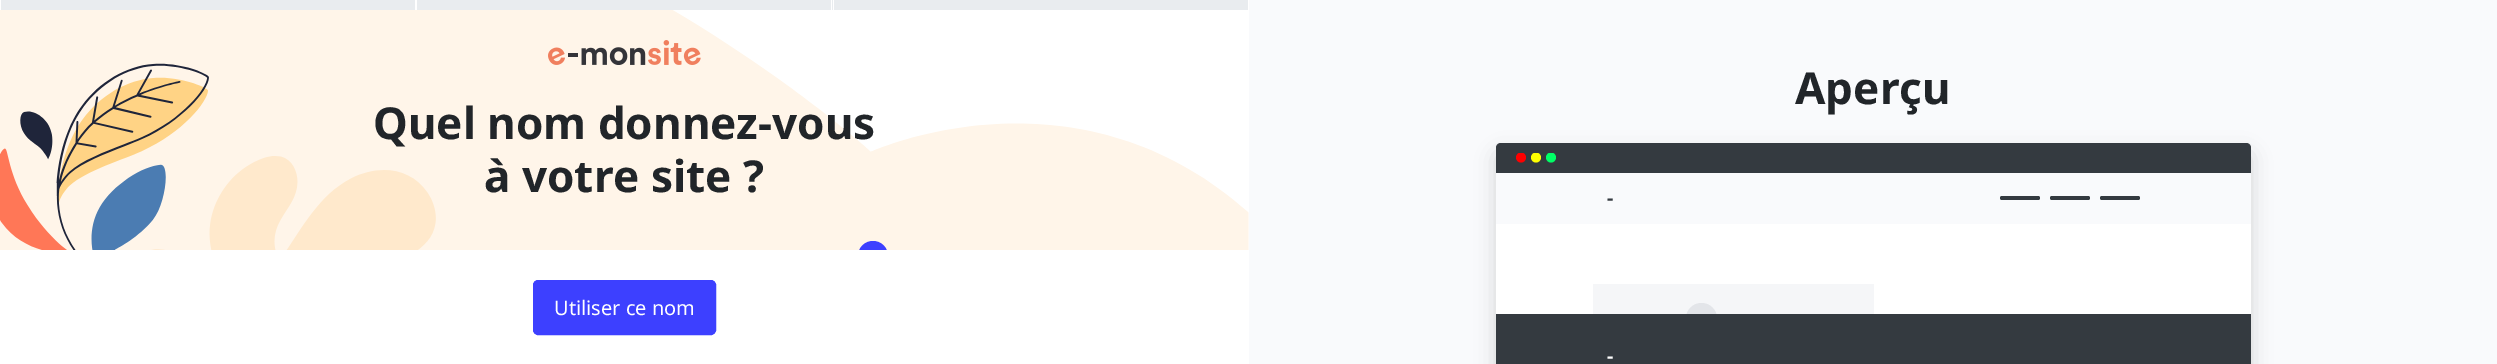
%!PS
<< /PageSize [2497 364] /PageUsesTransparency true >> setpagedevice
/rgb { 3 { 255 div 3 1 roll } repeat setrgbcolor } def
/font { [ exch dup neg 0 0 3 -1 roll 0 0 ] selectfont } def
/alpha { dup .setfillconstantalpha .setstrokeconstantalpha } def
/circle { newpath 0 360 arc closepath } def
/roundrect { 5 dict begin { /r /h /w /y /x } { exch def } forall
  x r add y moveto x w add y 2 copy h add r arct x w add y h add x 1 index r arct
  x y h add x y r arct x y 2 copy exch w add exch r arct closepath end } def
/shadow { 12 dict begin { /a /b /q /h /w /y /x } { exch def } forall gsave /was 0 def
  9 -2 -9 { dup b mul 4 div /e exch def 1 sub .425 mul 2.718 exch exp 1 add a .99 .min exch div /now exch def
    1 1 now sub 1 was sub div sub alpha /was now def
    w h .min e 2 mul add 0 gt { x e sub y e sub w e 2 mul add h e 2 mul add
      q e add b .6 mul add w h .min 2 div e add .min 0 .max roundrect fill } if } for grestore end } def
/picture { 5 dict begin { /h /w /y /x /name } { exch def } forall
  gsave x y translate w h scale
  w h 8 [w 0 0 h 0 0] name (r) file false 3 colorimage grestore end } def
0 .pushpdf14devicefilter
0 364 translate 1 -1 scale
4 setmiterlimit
255 255 255 rgb
0 0 2497 364 rectfill
(img/1.rgb) 0 10 1249 240 picture
[
  [1 0 1247 10 233 236 239]
  [415 0 2 10 255 255 255]
  [831 0 1 10 255 255 255]
  [833 0 1 10 255 255 255]
] { aload pop rgb rectfill } forall
(img/2.rgb) 548 40 153 25 picture
61 64 255 rgb
873 256 15 circle fill
255 255 255 rgb
858 250 30 21 rectfill
61 64 255 rgb
533.5 280.5 182 54 4.5 roundrect gsave fill grestore
stroke
249 250 252 rgb
1249 0 1248 364 rectfill
0 0 0 rgb
1496 153 755 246 5 10 0.15 shadow
52 58 64 rgb
1501 143 moveto 2246 143 lineto 2249 143 2251 145 2251 148 curveto 2251 173 lineto 1496 173 lineto 1496 148 lineto 1496 145 1498 143 1501 143 curveto closepath fill
gsave
1516 153 10 10 rectclip
255 0 0 rgb
1521 157.5 5 circle fill
grestore
gsave
1531 153 10 10 rectclip
255 255 0 rgb
1536 157.5 5 circle fill
grestore
gsave
1546 153 10 10 rectclip
0 255 102 rgb
1551 157.5 5 circle fill
grestore
255 255 255 rgb
1496 224 755 90 rectfill
249 250 252 rgb
1496 173 755 51 rectfill
52 58 64 rgb
2000 196 40 4 2 roundrect fill
2050 196 40 4 2 roundrect fill
2100 196 40 4 2 roundrect fill
245 246 248 rgb
1593 284 281 30 rectfill
227 229 233 rgb
1701.5 318.5 15.5 circle fill
52 58 64 rgb
1496 314 755 50 rectfill
/NotoSans-Bold 44 font
33 37 41 rgb
373 139 moveto (Quel nom donnez-vous) show
484 192 moveto (à votre site ?) show
/NotoSans-Regular 20 font
255 255 255 rgb
554 315 moveto (Utiliser ce nom) show
/NotoSans-Bold 44 font
33 37 41 rgb
1795 104 moveto (Aperçu) show
/NotoSans-Bold 20 font
52 58 64 rgb
1607 205 moveto (-) show
255 255 255 rgb
1607 363 moveto (-) show
.poppdf14devicefilter showpage
